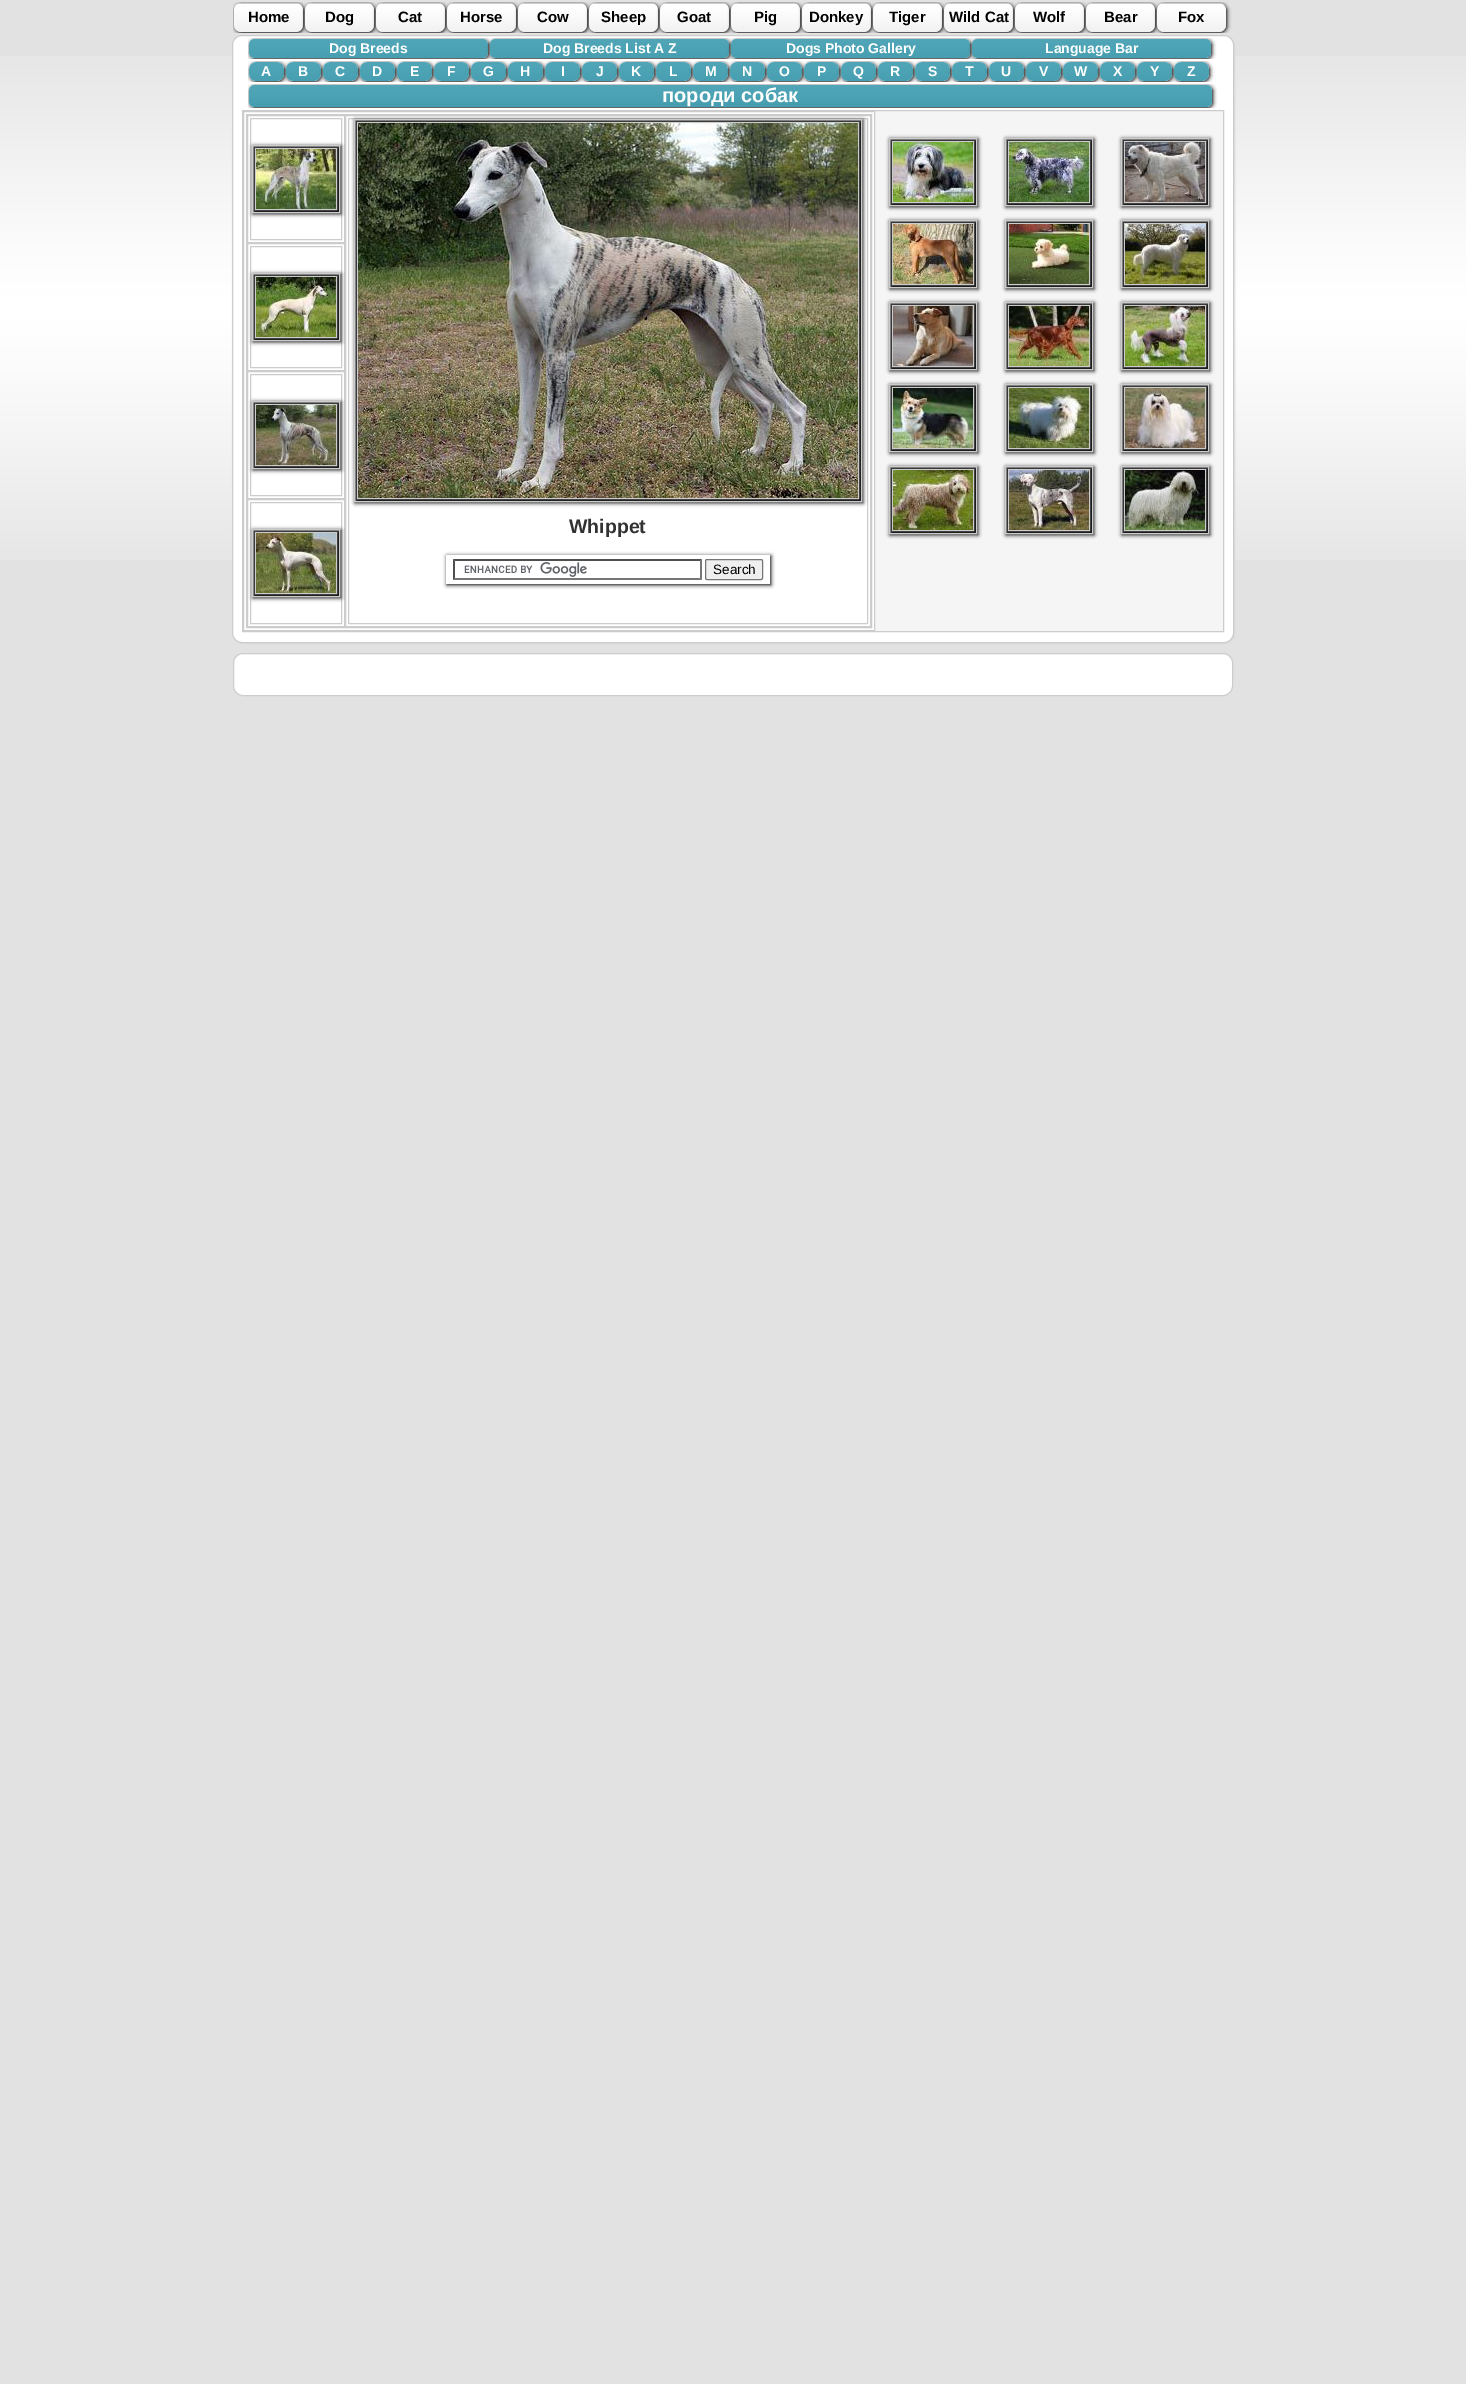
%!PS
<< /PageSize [1466 2384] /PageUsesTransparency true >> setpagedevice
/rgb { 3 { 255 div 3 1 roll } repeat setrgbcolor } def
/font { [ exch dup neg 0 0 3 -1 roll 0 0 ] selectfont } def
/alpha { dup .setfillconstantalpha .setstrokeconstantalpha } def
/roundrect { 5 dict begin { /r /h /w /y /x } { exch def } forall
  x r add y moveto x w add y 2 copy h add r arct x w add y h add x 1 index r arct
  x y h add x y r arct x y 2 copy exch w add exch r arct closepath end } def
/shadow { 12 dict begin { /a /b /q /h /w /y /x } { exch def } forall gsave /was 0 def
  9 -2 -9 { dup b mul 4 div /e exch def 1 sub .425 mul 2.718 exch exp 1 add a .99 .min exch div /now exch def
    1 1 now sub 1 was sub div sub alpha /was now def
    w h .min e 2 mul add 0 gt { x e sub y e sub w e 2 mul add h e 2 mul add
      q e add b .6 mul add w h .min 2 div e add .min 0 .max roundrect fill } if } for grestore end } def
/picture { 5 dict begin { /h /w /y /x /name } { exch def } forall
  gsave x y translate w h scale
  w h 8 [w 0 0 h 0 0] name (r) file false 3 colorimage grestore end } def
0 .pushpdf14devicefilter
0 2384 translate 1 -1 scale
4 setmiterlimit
226 226 226 rgb
0 0 1466 2384 rectfill
(img/1.rgb) 0 56 1466 504 picture
218 218 218 rgb
233 36 1002 608 10 1 1 shadow
255 255 255 rgb
232.5 35.5 1001 607 9.5 roundrect gsave fill grestore
204 204 204 rgb
stroke
gsave
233 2 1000 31 rectclip
0 0 0 rgb
235 4 69 29 7 2 1 shadow
grestore
(img/2.rgb) 234 3 69 29 picture
gsave
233 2 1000 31 rectclip
0 0 0 rgb
306 4 69 29 7 2 1 shadow
grestore
(img/3.rgb) 305 3 69 29 picture
gsave
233 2 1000 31 rectclip
0 0 0 rgb
377 4 69 29 7 2 1 shadow
grestore
(img/3.rgb) 376 3 69 29 picture
gsave
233 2 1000 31 rectclip
0 0 0 rgb
448 4 69 29 7 2 1 shadow
grestore
(img/3.rgb) 447 3 69 29 picture
gsave
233 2 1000 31 rectclip
0 0 0 rgb
519 4 69 29 7 2 1 shadow
grestore
(img/3.rgb) 518 3 69 29 picture
gsave
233 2 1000 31 rectclip
0 0 0 rgb
590 4 69 29 7 2 1 shadow
grestore
(img/3.rgb) 589 3 69 29 picture
gsave
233 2 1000 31 rectclip
0 0 0 rgb
661 4 69 29 7 2 1 shadow
grestore
(img/3.rgb) 660 3 69 29 picture
gsave
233 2 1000 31 rectclip
0 0 0 rgb
732 4 69 29 7 2 1 shadow
grestore
(img/3.rgb) 731 3 69 29 picture
gsave
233 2 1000 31 rectclip
0 0 0 rgb
803 4 69 29 7 2 1 shadow
grestore
(img/3.rgb) 802 3 69 29 picture
gsave
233 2 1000 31 rectclip
0 0 0 rgb
874 4 69 29 7 2 1 shadow
grestore
(img/3.rgb) 873 3 69 29 picture
gsave
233 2 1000 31 rectclip
0 0 0 rgb
945 4 69 29 7 2 1 shadow
grestore
(img/3.rgb) 944 3 69 29 picture
gsave
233 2 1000 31 rectclip
0 0 0 rgb
1016 4 69 29 7 2 1 shadow
grestore
(img/4.rgb) 1015 3 69 29 picture
gsave
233 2 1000 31 rectclip
0 0 0 rgb
1087 4 69 29 7 2 1 shadow
grestore
(img/3.rgb) 1086 3 69 29 picture
gsave
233 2 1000 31 rectclip
0 0 0 rgb
1158 4 69 29 7 2 1 shadow
grestore
(img/3.rgb) 1157 3 69 29 picture
gsave
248 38 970 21 rectclip
0 0 0 rgb
250 40 239 19 5 2 1 shadow
grestore
(img/5.rgb) 249 39 239 19 picture
gsave
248 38 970 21 rectclip
0 0 0 rgb
491 40 239 19 5 2 1 shadow
grestore
(img/6.rgb) 490 39 239 19 picture
gsave
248 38 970 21 rectclip
0 0 0 rgb
732 40 239 19 5 2 1 shadow
grestore
(img/6.rgb) 731 39 239 19 picture
gsave
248 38 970 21 rectclip
0 0 0 rgb
973 40 239 19 5 2 1 shadow
grestore
(img/6.rgb) 972 39 239 19 picture
gsave
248 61 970 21 rectclip
0 0 0 rgb
250 63 35 19 7 2 1 shadow
grestore
(img/7.rgb) 249 62 35 19 picture
gsave
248 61 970 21 rectclip
0 0 0 rgb
287 63 35 19 7 2 1 shadow
grestore
(img/8.rgb) 286 62 35 19 picture
gsave
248 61 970 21 rectclip
0 0 0 rgb
324 63 35 19 7 2 1 shadow
grestore
(img/8.rgb) 323 62 35 19 picture
gsave
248 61 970 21 rectclip
0 0 0 rgb
361 63 35 19 7 2 1 shadow
grestore
(img/8.rgb) 360 62 35 19 picture
gsave
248 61 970 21 rectclip
0 0 0 rgb
398 63 35 19 7 2 1 shadow
grestore
(img/8.rgb) 397 62 35 19 picture
gsave
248 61 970 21 rectclip
0 0 0 rgb
435 63 35 19 7 2 1 shadow
grestore
(img/8.rgb) 434 62 35 19 picture
gsave
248 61 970 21 rectclip
0 0 0 rgb
472 63 35 19 7 2 1 shadow
grestore
(img/8.rgb) 471 62 35 19 picture
gsave
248 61 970 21 rectclip
0 0 0 rgb
509 63 35 19 7 2 1 shadow
grestore
(img/9.rgb) 508 62 35 19 picture
gsave
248 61 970 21 rectclip
0 0 0 rgb
546 63 35 19 7 2 1 shadow
grestore
(img/8.rgb) 545 62 35 19 picture
gsave
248 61 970 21 rectclip
0 0 0 rgb
583 63 35 19 7 2 1 shadow
grestore
(img/8.rgb) 582 62 35 19 picture
gsave
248 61 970 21 rectclip
0 0 0 rgb
620 63 35 19 7 2 1 shadow
grestore
(img/8.rgb) 619 62 35 19 picture
gsave
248 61 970 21 rectclip
0 0 0 rgb
657 63 35 19 7 2 1 shadow
grestore
(img/8.rgb) 656 62 35 19 picture
gsave
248 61 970 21 rectclip
0 0 0 rgb
694 63 35 19 7 2 1 shadow
grestore
(img/8.rgb) 693 62 35 19 picture
gsave
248 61 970 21 rectclip
0 0 0 rgb
731 63 35 19 7 2 1 shadow
grestore
(img/10.rgb) 730 62 35 19 picture
gsave
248 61 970 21 rectclip
0 0 0 rgb
768 63 35 19 7 2 1 shadow
grestore
(img/8.rgb) 767 62 35 19 picture
gsave
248 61 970 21 rectclip
0 0 0 rgb
805 63 35 19 7 2 1 shadow
grestore
(img/8.rgb) 804 62 35 19 picture
gsave
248 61 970 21 rectclip
0 0 0 rgb
842 63 35 19 7 2 1 shadow
grestore
(img/8.rgb) 841 62 35 19 picture
gsave
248 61 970 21 rectclip
0 0 0 rgb
879 63 35 19 7 2 1 shadow
grestore
(img/8.rgb) 878 62 35 19 picture
gsave
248 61 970 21 rectclip
0 0 0 rgb
916 63 35 19 7 2 1 shadow
grestore
(img/8.rgb) 915 62 35 19 picture
gsave
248 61 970 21 rectclip
0 0 0 rgb
953 63 35 19 7 2 1 shadow
grestore
(img/8.rgb) 952 62 35 19 picture
gsave
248 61 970 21 rectclip
0 0 0 rgb
990 63 35 19 7 2 1 shadow
grestore
(img/8.rgb) 989 62 35 19 picture
gsave
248 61 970 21 rectclip
0 0 0 rgb
1027 63 35 19 7 2 1 shadow
grestore
(img/8.rgb) 1026 62 35 19 picture
gsave
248 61 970 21 rectclip
0 0 0 rgb
1064 63 35 19 7 2 1 shadow
grestore
(img/8.rgb) 1063 62 35 19 picture
gsave
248 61 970 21 rectclip
0 0 0 rgb
1101 63 35 19 7 2 1 shadow
grestore
(img/8.rgb) 1100 62 35 19 picture
gsave
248 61 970 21 rectclip
0 0 0 rgb
1138 63 35 19 7 2 1 shadow
grestore
(img/8.rgb) 1137 62 35 19 picture
gsave
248 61 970 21 rectclip
0 0 0 rgb
1175 63 35 19 7 2 1 shadow
grestore
(img/8.rgb) 1174 62 35 19 picture
245 245 245 rgb
875 111 348 520 rectfill
204 204 204 rgb
242.5 110.5 981 521 rectstroke
243.5 111.5 631 519 rectstroke
246.5 114.5 625 513 rectstroke
gsave
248 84 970 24 rectclip
0 0 0 rgb
250 86 963 22 5 2 1 shadow
grestore
(img/11.rgb) 249 85 963 22 picture
247.5 243.5 97 127 rectstroke
250.5 246.5 91 121 rectstroke
345.5 115.5 525 511 rectstroke
0 0 0 rgb
253 274 88 68 0 2 1 shadow
204 204 204 rgb
252.5 273.5 87 67 rectstroke
255.5 276.5 81 61 rectstroke
(img/12.rgb) 256 277 80 60 picture
247.5 371.5 97 127 rectstroke
250.5 374.5 91 121 rectstroke
0 0 0 rgb
253 402 88 68 0 2 1 shadow
204 204 204 rgb
252.5 401.5 87 67 rectstroke
255.5 404.5 81 61 rectstroke
(img/13.rgb) 256 405 80 60 picture
247.5 499.5 97 127 rectstroke
250.5 502.5 91 121 rectstroke
0 0 0 rgb
253 530 88 68 0 2 1 shadow
204 204 204 rgb
252.5 529.5 87 67 rectstroke
255.5 532.5 81 61 rectstroke
(img/14.rgb) 256 533 80 60 picture
247.5 115.5 97 127 rectstroke
250.5 118.5 91 121 rectstroke
0 0 0 rgb
253 146 88 68 0 2 1 shadow
204 204 204 rgb
252.5 145.5 87 67 rectstroke
255.5 148.5 81 61 rectstroke
(img/15.rgb) 256 149 80 60 picture
348.5 118.5 519 505 rectstroke
0 0 0 rgb
355 120 508 383 0 2 1 shadow
204 204 204 rgb
354.5 119.5 507 382 rectstroke
357.5 122.5 501 376 rectstroke
(img/16.rgb) 358 123 500 375 picture
gsave
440 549 moveto 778 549 lineto 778 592 lineto 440 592 lineto closepath 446 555 moveto 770 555 lineto 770 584 lineto 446 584 lineto closepath eoclip newpath
0 0 0 rgb
447 556 324 29 0 2 1 shadow
grestore
(img/17.rgb) 464 562 123 15 picture
79 79 79 rgb
453 559 moveto 702 559 lineto 700 561 lineto 455 561 lineto closepath fill
118 118 118 rgb
702 559 moveto 702 580 lineto 700 578 lineto 700 561 lineto closepath fill
702 580 moveto 453 580 lineto 455 578 lineto 700 578 lineto closepath fill
79 79 79 rgb
453 580 moveto 453 559 lineto 455 561 lineto 455 578 lineto closepath fill
239 239 239 rgb
705.5 559.5 57 20 1.5 roundrect gsave fill grestore
118 118 118 rgb
stroke
0 0 0 rgb
890 139 88 68 0 2 1 shadow
204 204 204 rgb
889.5 138.5 87 67 rectstroke
892.5 141.5 81 61 rectstroke
(img/18.rgb) 893 142 80 60 picture
0 0 0 rgb
1006 139 88 68 0 2 1 shadow
204 204 204 rgb
1005.5 138.5 87 67 rectstroke
1008.5 141.5 81 61 rectstroke
(img/19.rgb) 1009 142 80 60 picture
0 0 0 rgb
1122 139 88 68 0 2 1 shadow
204 204 204 rgb
1121.5 138.5 87 67 rectstroke
1124.5 141.5 81 61 rectstroke
(img/20.rgb) 1125 142 80 60 picture
0 0 0 rgb
890 221 88 68 0 2 1 shadow
204 204 204 rgb
889.5 220.5 87 67 rectstroke
892.5 223.5 81 61 rectstroke
(img/21.rgb) 893 224 80 60 picture
0 0 0 rgb
1006 221 88 68 0 2 1 shadow
204 204 204 rgb
1005.5 220.5 87 67 rectstroke
1008.5 223.5 81 61 rectstroke
(img/22.rgb) 1009 224 80 60 picture
0 0 0 rgb
1122 221 88 68 0 2 1 shadow
204 204 204 rgb
1121.5 220.5 87 67 rectstroke
1124.5 223.5 81 61 rectstroke
(img/23.rgb) 1125 224 80 60 picture
0 0 0 rgb
890 303 88 68 0 2 1 shadow
204 204 204 rgb
889.5 302.5 87 67 rectstroke
892.5 305.5 81 61 rectstroke
(img/24.rgb) 893 306 80 60 picture
0 0 0 rgb
1006 303 88 68 0 2 1 shadow
204 204 204 rgb
1005.5 302.5 87 67 rectstroke
1008.5 305.5 81 61 rectstroke
(img/25.rgb) 1009 306 80 60 picture
0 0 0 rgb
1122 303 88 68 0 2 1 shadow
204 204 204 rgb
1121.5 302.5 87 67 rectstroke
1124.5 305.5 81 61 rectstroke
(img/26.rgb) 1125 306 80 60 picture
0 0 0 rgb
890 385 88 68 0 2 1 shadow
204 204 204 rgb
889.5 384.5 87 67 rectstroke
892.5 387.5 81 61 rectstroke
(img/27.rgb) 893 388 80 60 picture
0 0 0 rgb
1006 385 88 68 0 2 1 shadow
204 204 204 rgb
1005.5 384.5 87 67 rectstroke
1008.5 387.5 81 61 rectstroke
(img/28.rgb) 1009 388 80 60 picture
0 0 0 rgb
1122 385 88 68 0 2 1 shadow
204 204 204 rgb
1121.5 384.5 87 67 rectstroke
1124.5 387.5 81 61 rectstroke
(img/29.rgb) 1125 388 80 60 picture
0 0 0 rgb
890 467 88 68 0 2 1 shadow
204 204 204 rgb
889.5 466.5 87 67 rectstroke
892.5 469.5 81 61 rectstroke
(img/30.rgb) 893 470 80 60 picture
0 0 0 rgb
1006 467 88 68 0 2 1 shadow
204 204 204 rgb
1005.5 466.5 87 67 rectstroke
1008.5 469.5 81 61 rectstroke
(img/31.rgb) 1009 470 80 60 picture
0 0 0 rgb
1122 467 88 68 0 2 1 shadow
204 204 204 rgb
1121.5 466.5 87 67 rectstroke
1124.5 469.5 81 61 rectstroke
(img/32.rgb) 1125 470 80 60 picture
255 255 255 rgb
233.5 653.5 999 42 9.5 roundrect gsave fill grestore
204 204 204 rgb
stroke
/LiberationSans-Bold 15 font
0 0 0 rgb
[
  [(Home) 248 22]
  [(Dog) 325 22]
  [(Cat) 398 22]
  [(Horse) 460 22]
  [(Cow) 537 22]
  [(Sheep) 601 22]
  [(Goat) 677 22]
  [(Pig) 754 22]
  [(Donkey) 809 22]
  [(Tiger) 889 22]
  [(Wild Cat) 949 22]
  [(Wolf) 1033 22]
  [(Bear) 1104 22]
  [(Fox) 1178 22]
] { aload pop moveto show } forall
/LiberationSans-Bold 14 font
255 255 255 rgb
[
  [(Dog Breeds) 329 53]
  [(Dog Breeds List A Z) 543 53]
  [(Dogs Photo Gallery) 786 53]
  [(Language Bar) 1045 53]
  [(A) 261 76]
  [(B) 298 76]
  [(C) 335 76]
  [(D) 372 76]
  [(E) 410 76]
  [(F) 447 76]
  [(G) 483 76]
  [(H) 520 76]
  [(I) 561 76]
  [(J) 596 76]
  [(K) 631 76]
  [(L) 669 76]
  [(M) 705 76]
  [(N) 742 76]
  [(O) 779 76]
  [(P) 817 76]
  [(Q) 853 76]
  [(R) 890 76]
  [(S) 928 76]
  [(T) 965 76]
  [(U) 1001 76]
  [(V) 1039 76]
  [(W) 1074 76]
  [(X) 1113 76]
  [(Y) 1150 76]
  [(Z) 1187 76]
] { aload pop moveto show } forall
/LiberationSans-Bold 20 font
662 102 moveto (породи собак) show
/LiberationSans-Bold 19.5 font
50 50 50 rgb
569 533 moveto (Whippet) show
/LiberationSans-Regular 13.5 font
0 0 0 rgb
713 574 moveto (Search) show
.poppdf14devicefilter showpage
